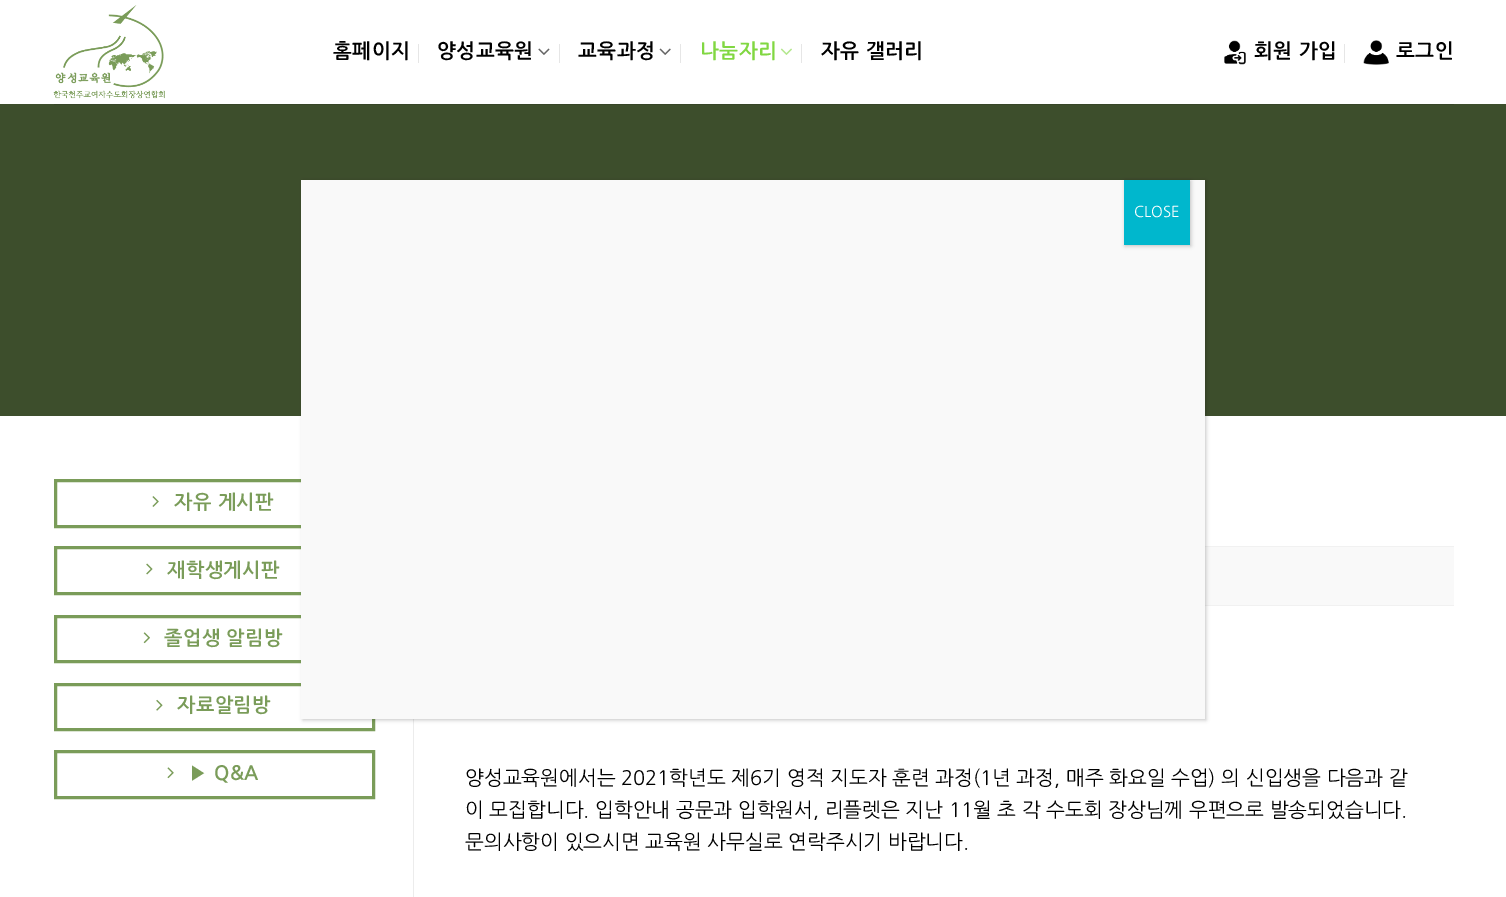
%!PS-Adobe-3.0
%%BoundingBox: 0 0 1506 897
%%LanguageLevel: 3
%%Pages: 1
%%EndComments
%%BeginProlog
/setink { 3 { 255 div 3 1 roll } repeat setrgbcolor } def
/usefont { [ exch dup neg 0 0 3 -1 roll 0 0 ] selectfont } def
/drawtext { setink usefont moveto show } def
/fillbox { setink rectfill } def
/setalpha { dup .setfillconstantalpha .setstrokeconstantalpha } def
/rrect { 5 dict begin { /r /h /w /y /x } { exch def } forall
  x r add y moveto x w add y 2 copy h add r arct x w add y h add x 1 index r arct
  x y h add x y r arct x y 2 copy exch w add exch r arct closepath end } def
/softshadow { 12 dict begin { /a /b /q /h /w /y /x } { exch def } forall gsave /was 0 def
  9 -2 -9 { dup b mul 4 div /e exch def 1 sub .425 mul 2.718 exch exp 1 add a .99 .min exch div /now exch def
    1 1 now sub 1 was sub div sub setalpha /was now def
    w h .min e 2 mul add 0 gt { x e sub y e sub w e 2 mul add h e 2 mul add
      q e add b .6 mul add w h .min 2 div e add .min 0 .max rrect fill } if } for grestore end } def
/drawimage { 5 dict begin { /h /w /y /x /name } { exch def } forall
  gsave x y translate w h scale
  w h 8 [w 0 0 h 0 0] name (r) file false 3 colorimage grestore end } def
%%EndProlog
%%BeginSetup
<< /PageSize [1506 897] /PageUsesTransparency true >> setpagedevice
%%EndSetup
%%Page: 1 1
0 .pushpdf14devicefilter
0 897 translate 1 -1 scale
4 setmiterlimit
0 0 1506 897 255 255 255 fillbox
(assets/img1.rgb) 53 5 112 94 drawimage
/NanumGothic-Bold 20 usefont
0 0 0 setink
333 58 moveto 0.5 0 (홈페이지) ashow
418 44 1 19 230 230 230 fillbox
0 0 0 setink
437 58 moveto 0.5 0 (양성교육원) ashow
(assets/img2.rgb) 538 48 12 7 drawimage
559 44 1 19 230 230 230 fillbox
0 0 0 setink
578 58 moveto 0.5 0 (교육과정) ashow
(assets/img3.rgb) 659 48 12 7 drawimage
680 44 1 19 230 230 230 fillbox
129 215 66 setink
700 58 moveto 0.5 0 (나눔자리) ashow
(assets/img4.rgb) 780 48 12 7 drawimage
801 44 1 19 230 230 230 fillbox
0 0 0 setink
821 58 moveto 0.5 0 (자유 갤러리) ashow
(assets/img5.rgb) 1224 40 22 25 drawimage
1254 58 moveto 0.5 0 (회원 가입) ashow
1344 44 1 19 230 230 230 fillbox
(assets/img6.rgb) 1363 40 26 25 drawimage
0 0 0 setink
1396 58 moveto 0.5 0 (로그인) ashow
0 104 1506 312 61 78 44 fillbox
54 104 1400 1 55 70 40 fillbox
122 156 89 setink
3 setlinewidth
55.5 480.5 318 46 rectstroke
(assets/img7.rgb) 152 496 7 11 drawimage
/NanumGothic-Bold 19.5 usefont
174 509 moveto 0.5 0 (자유 게시판) ashow
55.5 547.5 318 46 rectstroke
(assets/img8.rgb) 146 563 7 12 drawimage
167 577 moveto 0.5 0 (재학생게시판) ashow
55.5 616.5 318 45 rectstroke
(assets/img9.rgb) 143 632 7 12 drawimage
164 645 moveto 0.5 0 (졸업생 알림방) ashow
55.5 684.5 318 45 rectstroke
(assets/img10.rgb) 156 699 7 12 drawimage
177 712 moveto 0.5 0 (자료알림방) ashow
55.5 751.5 318 46 rectstroke
(assets/img11.rgb) 167 767 7 12 drawimage
189 780 moveto 0.5 0 (▶ Q&A) ashow
413 719 1 178 236 236 236 fillbox
1205 547 249 58 249 249 249 fillbox
1205 546 249 1 241 241 241 fillbox
1205 605 249 1 241 241 241 fillbox
(양성교육원에서는 2021학년도 제6기 영적 지도자 훈련 과정\(1년 과정, 매주 화요일 수업\) 의 신입생을 다음과 같) 465 785 /NanumGothic-Regular 20 0 0 0 drawtext
(이 모집합니다. 입학안내 공문과 입학원서, 리플렛은 지난 11월 초 각 수도회 장상님께 우편으로 발송되었습니다.) 465 817 /NanumGothic-Regular 20 0 0 0 drawtext
(문의사항이 있으시면 교육원 사무실로 연락주시기 바랍니다.) 465 849 /NanumGothic-Regular 20 0 0 0 drawtext
2 2 2 setink
303 181 903 539 0 2 0.23 softshadow
301 180 904 539 249 249 249 fillbox
2 2 2 setink
1125 181 66 65 0 2 0.23 softshadow
1124 180 66 65 0 183 205 fillbox
(CLOSE) 1134 217 /NanumGothic-Regular 15 255 255 255 drawtext
.poppdf14devicefilter showpage
%%EOF
